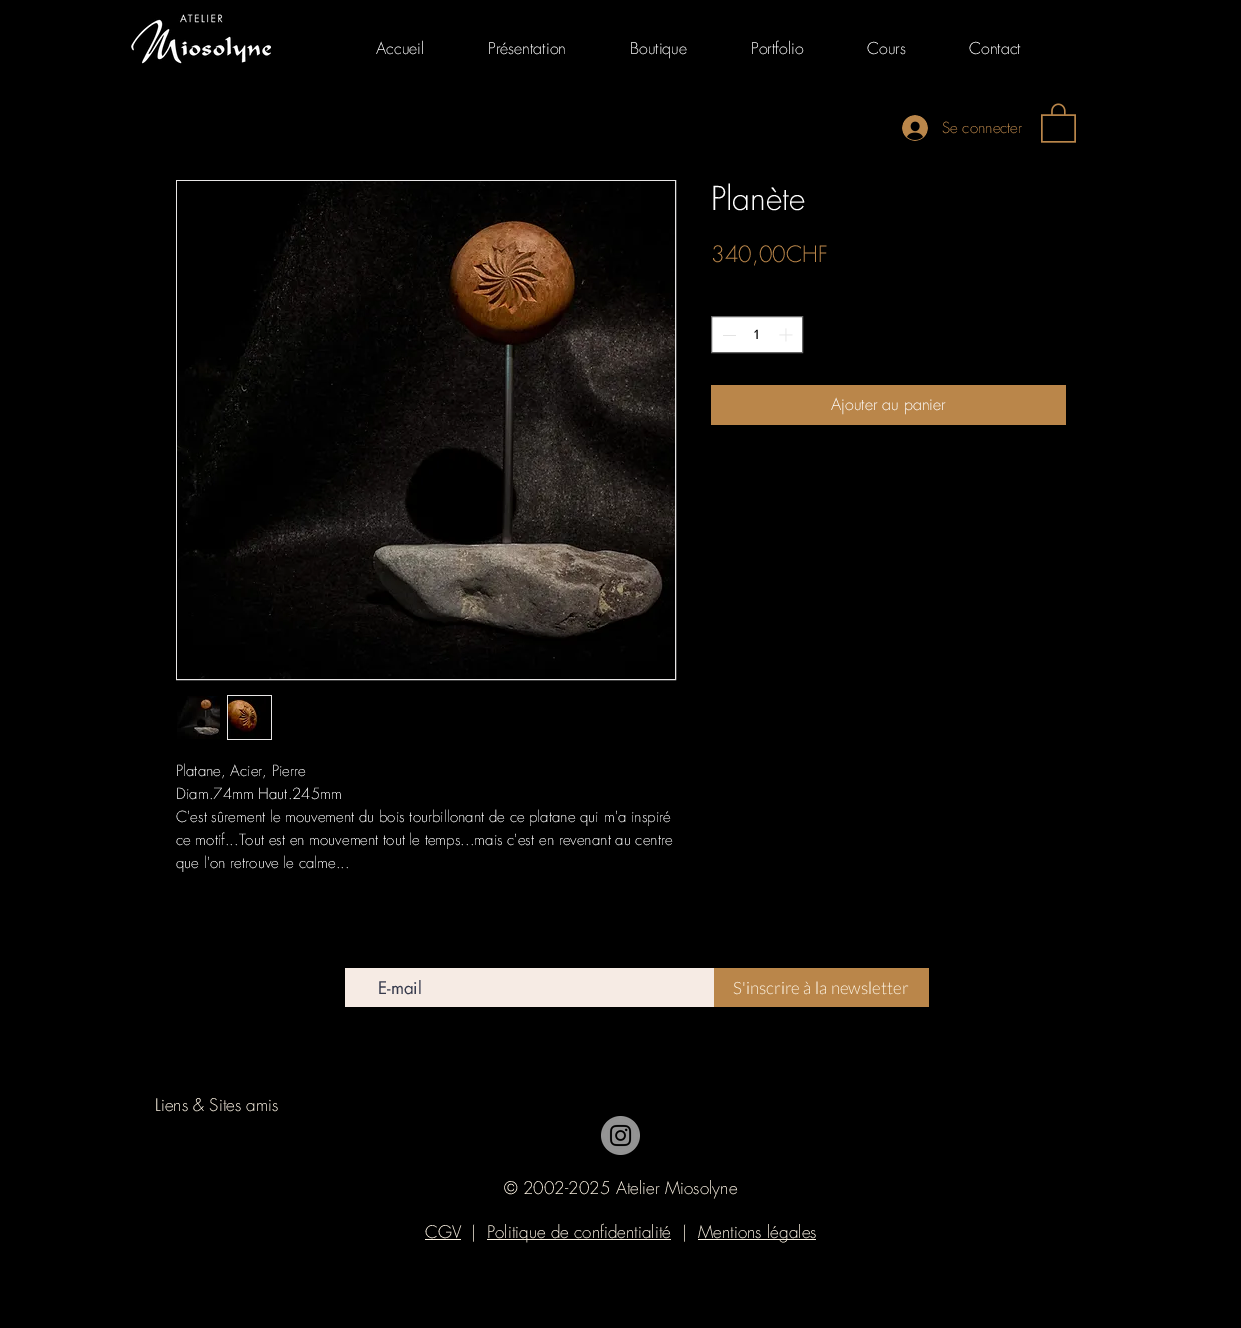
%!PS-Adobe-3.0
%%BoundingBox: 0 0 1241 1328
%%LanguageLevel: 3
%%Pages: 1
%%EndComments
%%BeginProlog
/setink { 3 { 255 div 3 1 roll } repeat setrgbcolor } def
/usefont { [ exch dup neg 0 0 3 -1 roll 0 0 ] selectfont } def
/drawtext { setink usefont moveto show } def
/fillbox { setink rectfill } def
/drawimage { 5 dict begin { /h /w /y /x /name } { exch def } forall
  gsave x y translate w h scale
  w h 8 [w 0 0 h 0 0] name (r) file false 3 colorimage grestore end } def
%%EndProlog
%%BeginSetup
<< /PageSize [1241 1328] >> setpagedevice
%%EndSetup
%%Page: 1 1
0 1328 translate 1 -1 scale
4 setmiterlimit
0 0 1241 1328 0 0 0 fillbox
(assets/img1.rgb) 131 14 140 50 drawimage
(Accueil) 376 54 /futura-Light 16 255 255 255 drawtext
(Présentation) 488 54 /futura-Light 16 255 255 255 drawtext
(Boutique) 630 54 /futura-Light 16 255 255 255 drawtext
(Portfolio) 751 54 /futura-Light 16 255 255 255 drawtext
(Cours) 867 54 /futura-Light 16 255 255 255 drawtext
(Contact) 969 54 /futura-Light 16 255 255 255 drawtext
(assets/img2.rgb) 902 115 26 26 drawimage
(Se connecter) 942 133 /futura-Light 15 186 134 74 drawtext
(assets/img3.rgb) 1041 103 35 40 drawimage
(Planète) 711 210 /futura-Light 32 255 255 255 drawtext
(340,00CHF) 711 262 /futura-Light 22 186 134 74 drawtext
255 255 255 setink
711.5 316.5 moveto 802.5 316.5 lineto 802.5 352.5 lineto 711.5 352.5 lineto closepath gsave fill grestore
102 102 102 setink
stroke
723 335 13 1 227 227 227 fillbox
(1) 754 339 /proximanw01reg-Regular 14 0 0 0 drawtext
(assets/img4.rgb) 779 328 14 14 drawimage
711 385 355 40 186 134 74 fillbox
(Ajouter au panier) 831 410 /futura-Light 16 255 255 255 drawtext
232 230 230 setink
176.5 180.5 499 499 rectstroke
(assets/img5.rgb) 177 181 498 498 drawimage
(assets/img6.rgb) 177 696 43 43 drawimage
227 695 45 45 232 230 230 fillbox
(assets/img7.rgb) 228 696 43 43 drawimage
(Platane, Acier, Pierre) 176 776 /futura-Light 15 255 255 255 drawtext
(Diam.74mm Haut.245mm) 176 799 /futura-Light 15 255 255 255 drawtext
(C'est sûrement le mouvement du bois tourbillonant de ce platane qui m'a inspiré) 176 822 /futura-Light 15 255 255 255 drawtext
(ce motif...Tout est en mouvement tout le temps...mais c'est en revenant au centre) 176 845 /futura-Light 15 255 255 255 drawtext
(que l'on retrouve le calme...) 176 868 /futura-Light 15 255 255 255 drawtext
345 968 369 39 246 235 228 fillbox
(E-mail) 378 994 /futura-Regular 17 55 59 77 drawtext
714 968 215 39 186 134 74 fillbox
(S'inscrire à la newsletter) 733 994 /Lato-Light 17 255 246 230 drawtext
(Liens & Sites amis) 155 1111 /futura-Light 17 255 246 230 drawtext
(assets/img8.rgb) 601 1116 39 39 drawimage
(© 2002-2025 Atelier Miosolyne) 504 1194 /futura-Light 17 255 246 230 drawtext
(CGV) 425 1238 /futura-Light 17 255 246 230 drawtext
425 1239 36 1 255 246 230 fillbox
(|) 471 1238 /futura-Light 17 255 246 230 drawtext
487 1239 184 1 255 246 230 fillbox
(Politique de confidentialité) 487 1238 /futura-Light 17 255 246 230 drawtext
(|) 682 1238 /futura-Light 17 255 246 230 drawtext
698 1239 118 1 255 246 230 fillbox
(Mentions légales) 698 1238 /futura-Light 17 255 246 230 drawtext
showpage
%%EOF
